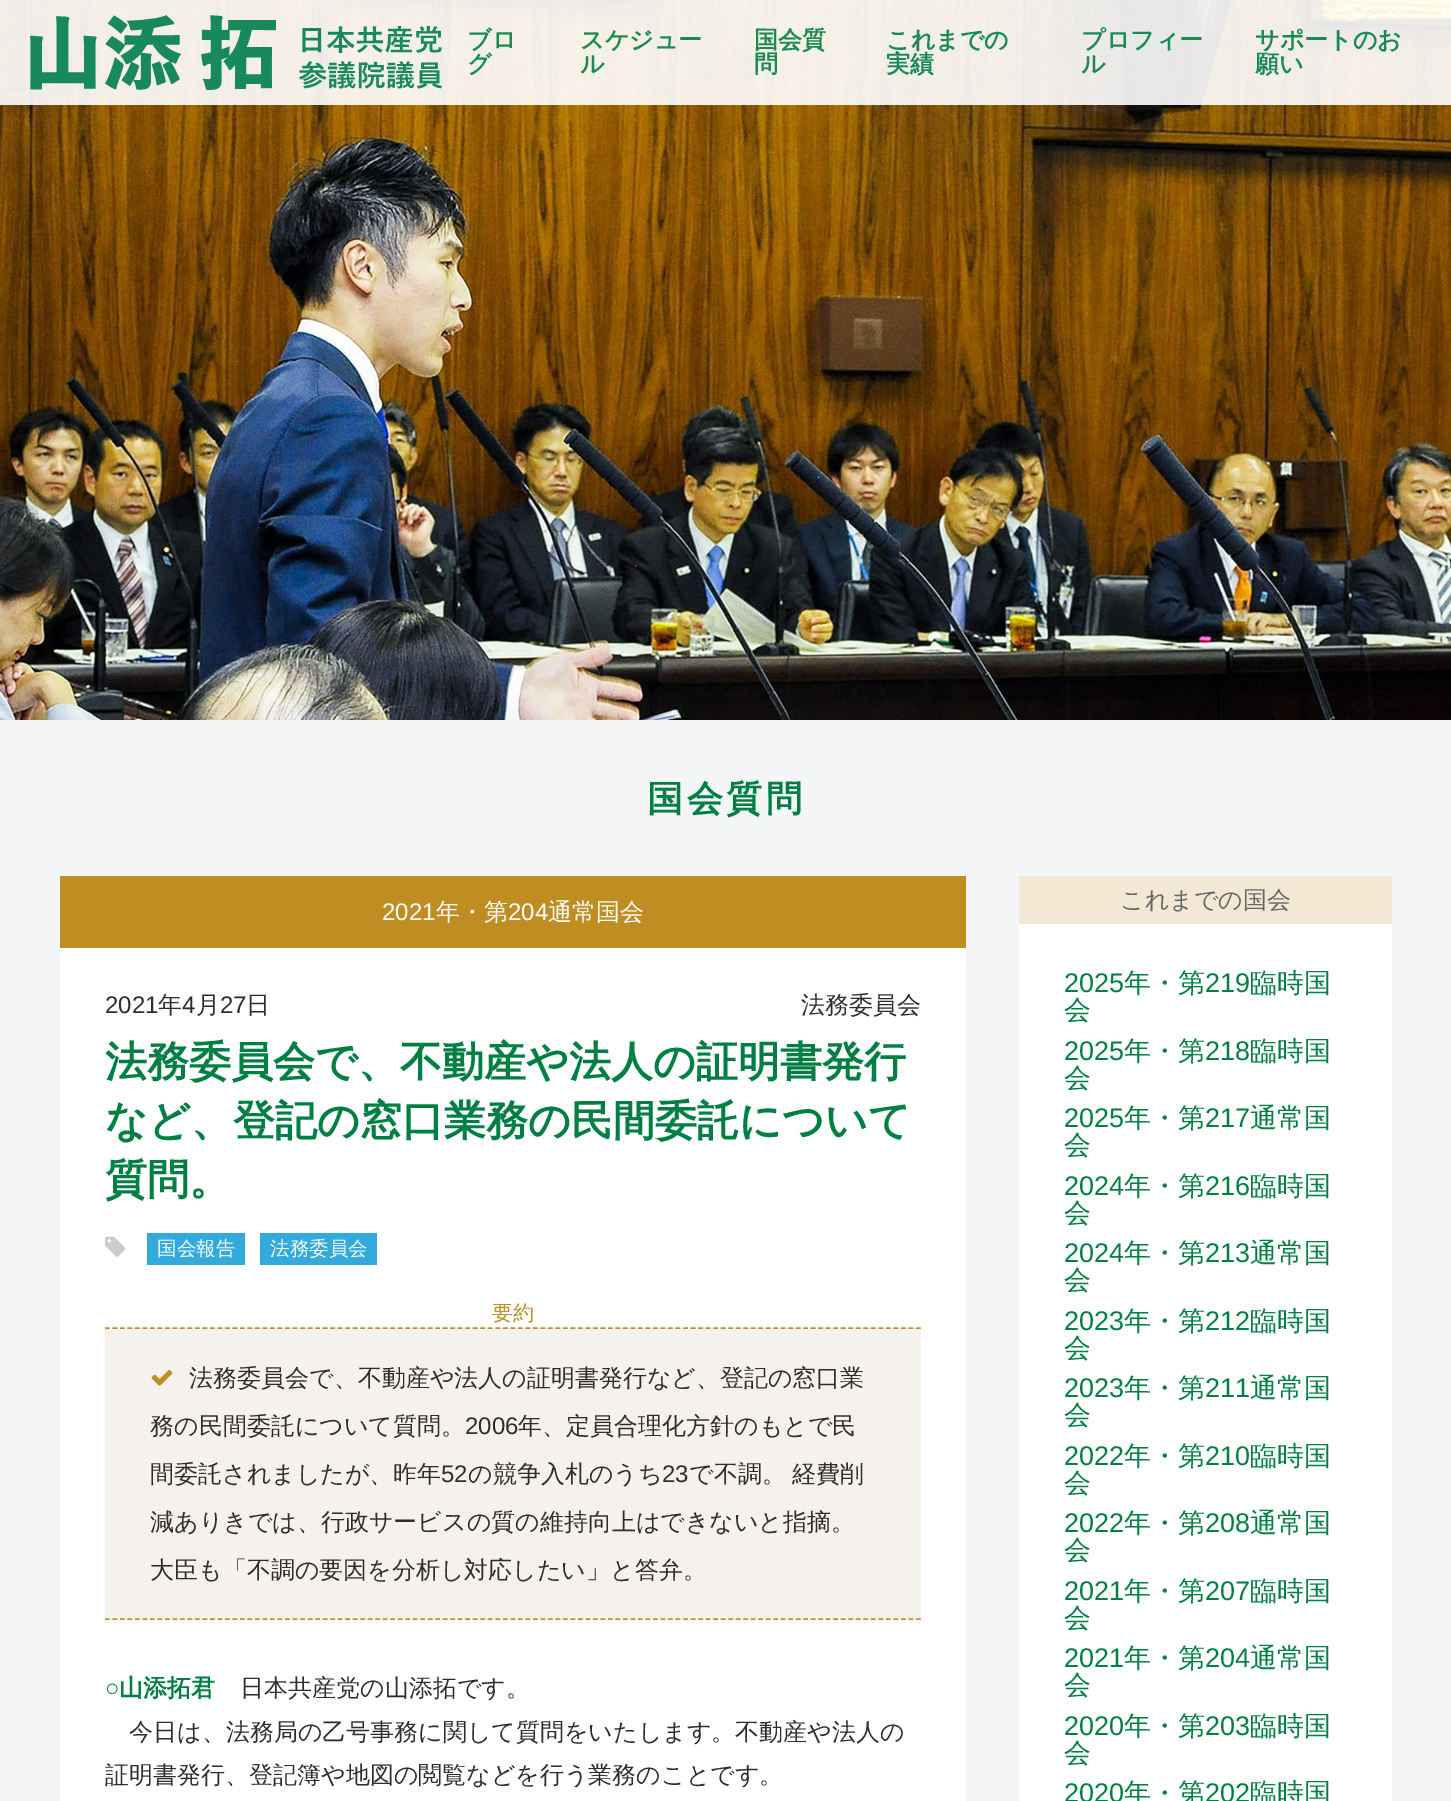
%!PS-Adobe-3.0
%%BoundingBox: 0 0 1451 1801
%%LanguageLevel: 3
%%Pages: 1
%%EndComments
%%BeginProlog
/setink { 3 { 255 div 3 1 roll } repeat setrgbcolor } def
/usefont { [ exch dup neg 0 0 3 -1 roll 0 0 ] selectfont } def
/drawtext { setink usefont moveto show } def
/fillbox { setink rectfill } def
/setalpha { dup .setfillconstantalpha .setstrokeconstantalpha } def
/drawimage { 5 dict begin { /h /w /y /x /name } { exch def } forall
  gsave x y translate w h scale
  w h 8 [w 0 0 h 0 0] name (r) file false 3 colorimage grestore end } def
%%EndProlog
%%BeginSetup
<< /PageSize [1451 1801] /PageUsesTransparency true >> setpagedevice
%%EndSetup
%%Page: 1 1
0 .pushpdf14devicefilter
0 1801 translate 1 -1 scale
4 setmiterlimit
0 0 1451 1801 244 245 246 fillbox
(assets/img2.rgb) 0 0 1451 720 drawimage
0.9 setalpha
0 0 1451 105 255 255 255 fillbox
1 setalpha
(assets/img1.rgb) 30 15 413 75 drawimage
(ブロ) 467 48 /WenQuanYiZenHei-Bold 24 24 138 82 drawtext
(グ) 467 72 /WenQuanYiZenHei-Bold 24 24 138 82 drawtext
(スケジュー) 580 48 /WenQuanYiZenHei-Bold 24 24 138 82 drawtext
(ル) 580 72 /WenQuanYiZenHei-Bold 24 24 138 82 drawtext
(国会質) 754 48 /WenQuanYiZenHei-Bold 24 24 138 82 drawtext
(問) 754 72 /WenQuanYiZenHei-Bold 24 24 138 82 drawtext
(これまでの) 886 48 /WenQuanYiZenHei-Bold 24 24 138 82 drawtext
(実績) 886 72 /WenQuanYiZenHei-Bold 24 24 138 82 drawtext
(プロフィー) 1081 48 /WenQuanYiZenHei-Bold 24 24 138 82 drawtext
(ル) 1081 72 /WenQuanYiZenHei-Bold 24 24 138 82 drawtext
(サポートのお) 1255 48 /WenQuanYiZenHei-Bold 24 24 138 82 drawtext
(願い) 1255 72 /WenQuanYiZenHei-Bold 24 24 138 82 drawtext
/WenQuanYiZenHei-Bold 36 usefont
0 127 66 setink
647 811 moveto 3.5 0 (国会質問) ashow
60 948 906 853 255 255 255 fillbox
60 876 906 72 192 141 35 fillbox
(2021) 382 920 /LiberationSans-Regular 24 255 255 255 drawtext
(年・第) 436 920 /WenQuanYiZenHei-Medium 24 255 255 255 drawtext
(204) 508 920 /LiberationSans-Regular 24 255 255 255 drawtext
(通常国会) 548 920 /WenQuanYiZenHei-Medium 24 255 255 255 drawtext
(2021) 105 1013 /LiberationSans-Regular 24 45 45 45 drawtext
(年) 158 1013 /WenQuanYiZenHei-Medium 24 45 45 45 drawtext
(4) 182 1013 /LiberationSans-Regular 24 45 45 45 drawtext
(月) 196 1013 /WenQuanYiZenHei-Medium 24 45 45 45 drawtext
(27) 220 1013 /LiberationSans-Regular 24 45 45 45 drawtext
(日) 246 1013 /WenQuanYiZenHei-Medium 24 45 45 45 drawtext
(法務委員会) 801 1013 /WenQuanYiZenHei-Medium 24 45 45 45 drawtext
(法務委員会で、不動産や法人の証明書発行) 105 1076 /WenQuanYiZenHei-Bold 42 0 127 66 drawtext
(など、登記の窓口業務の民間委託について) 105 1135 /WenQuanYiZenHei-Bold 42 0 127 66 drawtext
(質問。) 105 1194 /WenQuanYiZenHei-Bold 42 0 127 66 drawtext
(assets/img3.rgb) 105 1236 21 21 drawimage
147 1233 98 32 50 170 220 fillbox
(国会報告) 157 1255 /WenQuanYiZenHei-Medium 19.5 255 255 255 drawtext
260 1233 117 32 50 170 220 fillbox
(法務委員会) 270 1255 /WenQuanYiZenHei-Medium 19.5 255 255 255 drawtext
(要約) 492 1320 /WenQuanYiZenHei-Medium 21 192 141 35 drawtext
105 1328 816 292 245 241 237 fillbox
192 141 35 setink
1.5 setlinewidth
[4.5 3.01] 0 setdash
105 1328 moveto 921 1328 lineto stroke
105 1619 moveto 921 1619 lineto stroke
(assets/img4.rgb) 151 1369 22 17 drawimage
(法務委員会で、不動産や法人の証明書発行など、登記の窓口業) 189 1386 /WenQuanYiZenHei-Medium 24 45 45 45 drawtext
(務の民間委託について質問。) 150 1434 /WenQuanYiZenHei-Medium 24 45 45 45 drawtext
(2006) 465 1434 /LiberationSans-Regular 24 45 45 45 drawtext
(年、定員合理化方針のもとで民) 518 1434 /WenQuanYiZenHei-Medium 24 45 45 45 drawtext
(間委託されましたが、昨年) 150 1482 /WenQuanYiZenHei-Medium 24 45 45 45 drawtext
(52) 441 1482 /LiberationSans-Regular 24 45 45 45 drawtext
(の競争入札のうち) 468 1482 /WenQuanYiZenHei-Medium 24 45 45 45 drawtext
(23) 662 1482 /LiberationSans-Regular 24 45 45 45 drawtext
/WenQuanYiZenHei-Medium 24 usefont
689 1482 moveto -1 0 32 (で不調。 経費削) widthshow
(減ありきでは、行政サービスの質の維持向上はできないと指摘。) 150 1530 /WenQuanYiZenHei-Medium 24 45 45 45 drawtext
(大臣も「不調の要因を分析し対応したい」と答弁。) 150 1578 /WenQuanYiZenHei-Medium 24 45 45 45 drawtext
(○) 105 1696 /LiberationSans-Bold 24 0 127 66 drawtext
(山添拓君) 119 1696 /WenQuanYiZenHei-Bold 24 0 127 66 drawtext
(日本共産党の山添拓です。) 240 1696 /WenQuanYiZenHei-Medium 24 45 45 45 drawtext
(今日は、法務局の乙号事務に関して質問をいたします。不動産や法人の) 129 1740 /WenQuanYiZenHei-Medium 24 45 45 45 drawtext
(証明書発行、登記簿や地図の閲覧などを行う業務のことです。) 105 1783 /WenQuanYiZenHei-Medium 24 45 45 45 drawtext
1019 876 373 48 242 232 211 fillbox
(これまでの国会) 1120 908 /WenQuanYiZenHei-Medium 24 102 102 102 drawtext
1019 924 373 877 255 255 255 fillbox
(2025) 1064 992 /LiberationSans-Regular 27 0 127 66 drawtext
(年・第) 1124 992 /WenQuanYiZenHei-Medium 27 0 127 66 drawtext
(219) 1205 992 /LiberationSans-Regular 27 0 127 66 drawtext
(臨時国) 1250 992 /WenQuanYiZenHei-Medium 27 0 127 66 drawtext
(会) 1064 1019 /WenQuanYiZenHei-Medium 27 0 127 66 drawtext
(2025) 1064 1060 /LiberationSans-Regular 27 0 127 66 drawtext
(年・第) 1124 1060 /WenQuanYiZenHei-Medium 27 0 127 66 drawtext
(218) 1205 1060 /LiberationSans-Regular 27 0 127 66 drawtext
(臨時国) 1250 1060 /WenQuanYiZenHei-Medium 27 0 127 66 drawtext
(会) 1064 1087 /WenQuanYiZenHei-Medium 27 0 127 66 drawtext
(2025) 1064 1127 /LiberationSans-Regular 27 0 127 66 drawtext
(年・第) 1124 1127 /WenQuanYiZenHei-Medium 27 0 127 66 drawtext
(217) 1205 1127 /LiberationSans-Regular 27 0 127 66 drawtext
(通常国) 1250 1127 /WenQuanYiZenHei-Medium 27 0 127 66 drawtext
(会) 1064 1154 /WenQuanYiZenHei-Medium 27 0 127 66 drawtext
(2024) 1064 1195 /LiberationSans-Regular 27 0 127 66 drawtext
(年・第) 1124 1195 /WenQuanYiZenHei-Medium 27 0 127 66 drawtext
(216) 1205 1195 /LiberationSans-Regular 27 0 127 66 drawtext
(臨時国) 1250 1195 /WenQuanYiZenHei-Medium 27 0 127 66 drawtext
(会) 1064 1222 /WenQuanYiZenHei-Medium 27 0 127 66 drawtext
(2024) 1064 1262 /LiberationSans-Regular 27 0 127 66 drawtext
(年・第) 1124 1262 /WenQuanYiZenHei-Medium 27 0 127 66 drawtext
(213) 1205 1262 /LiberationSans-Regular 27 0 127 66 drawtext
(通常国) 1250 1262 /WenQuanYiZenHei-Medium 27 0 127 66 drawtext
(会) 1064 1289 /WenQuanYiZenHei-Medium 27 0 127 66 drawtext
(2023) 1064 1330 /LiberationSans-Regular 27 0 127 66 drawtext
(年・第) 1124 1330 /WenQuanYiZenHei-Medium 27 0 127 66 drawtext
(212) 1205 1330 /LiberationSans-Regular 27 0 127 66 drawtext
(臨時国) 1250 1330 /WenQuanYiZenHei-Medium 27 0 127 66 drawtext
(会) 1064 1357 /WenQuanYiZenHei-Medium 27 0 127 66 drawtext
(2023) 1064 1397 /LiberationSans-Regular 27 0 127 66 drawtext
(年・第) 1124 1397 /WenQuanYiZenHei-Medium 27 0 127 66 drawtext
(211) 1205 1397 /LiberationSans-Regular 27 0 127 66 drawtext
(通常国) 1250 1397 /WenQuanYiZenHei-Medium 27 0 127 66 drawtext
(会) 1064 1424 /WenQuanYiZenHei-Medium 27 0 127 66 drawtext
(2022) 1064 1465 /LiberationSans-Regular 27 0 127 66 drawtext
(年・第) 1124 1465 /WenQuanYiZenHei-Medium 27 0 127 66 drawtext
(210) 1205 1465 /LiberationSans-Regular 27 0 127 66 drawtext
(臨時国) 1250 1465 /WenQuanYiZenHei-Medium 27 0 127 66 drawtext
(会) 1064 1492 /WenQuanYiZenHei-Medium 27 0 127 66 drawtext
(2022) 1064 1532 /LiberationSans-Regular 27 0 127 66 drawtext
(年・第) 1124 1532 /WenQuanYiZenHei-Medium 27 0 127 66 drawtext
(208) 1205 1532 /LiberationSans-Regular 27 0 127 66 drawtext
(通常国) 1250 1532 /WenQuanYiZenHei-Medium 27 0 127 66 drawtext
(会) 1064 1559 /WenQuanYiZenHei-Medium 27 0 127 66 drawtext
(2021) 1064 1600 /LiberationSans-Regular 27 0 127 66 drawtext
(年・第) 1124 1600 /WenQuanYiZenHei-Medium 27 0 127 66 drawtext
(207) 1205 1600 /LiberationSans-Regular 27 0 127 66 drawtext
(臨時国) 1250 1600 /WenQuanYiZenHei-Medium 27 0 127 66 drawtext
(会) 1064 1627 /WenQuanYiZenHei-Medium 27 0 127 66 drawtext
(2021) 1064 1667 /LiberationSans-Regular 27 0 127 66 drawtext
(年・第) 1124 1667 /WenQuanYiZenHei-Medium 27 0 127 66 drawtext
(204) 1205 1667 /LiberationSans-Regular 27 0 127 66 drawtext
(通常国) 1250 1667 /WenQuanYiZenHei-Medium 27 0 127 66 drawtext
(会) 1064 1694 /WenQuanYiZenHei-Medium 27 0 127 66 drawtext
(2020) 1064 1735 /LiberationSans-Regular 27 0 127 66 drawtext
(年・第) 1124 1735 /WenQuanYiZenHei-Medium 27 0 127 66 drawtext
(203) 1205 1735 /LiberationSans-Regular 27 0 127 66 drawtext
(臨時国) 1250 1735 /WenQuanYiZenHei-Medium 27 0 127 66 drawtext
(会) 1064 1762 /WenQuanYiZenHei-Medium 27 0 127 66 drawtext
(2020) 1064 1802 /LiberationSans-Regular 27 0 127 66 drawtext
(年・第) 1124 1802 /WenQuanYiZenHei-Medium 27 0 127 66 drawtext
(202) 1205 1802 /LiberationSans-Regular 27 0 127 66 drawtext
(臨時国) 1250 1802 /WenQuanYiZenHei-Medium 27 0 127 66 drawtext
.poppdf14devicefilter showpage
%%EOF
